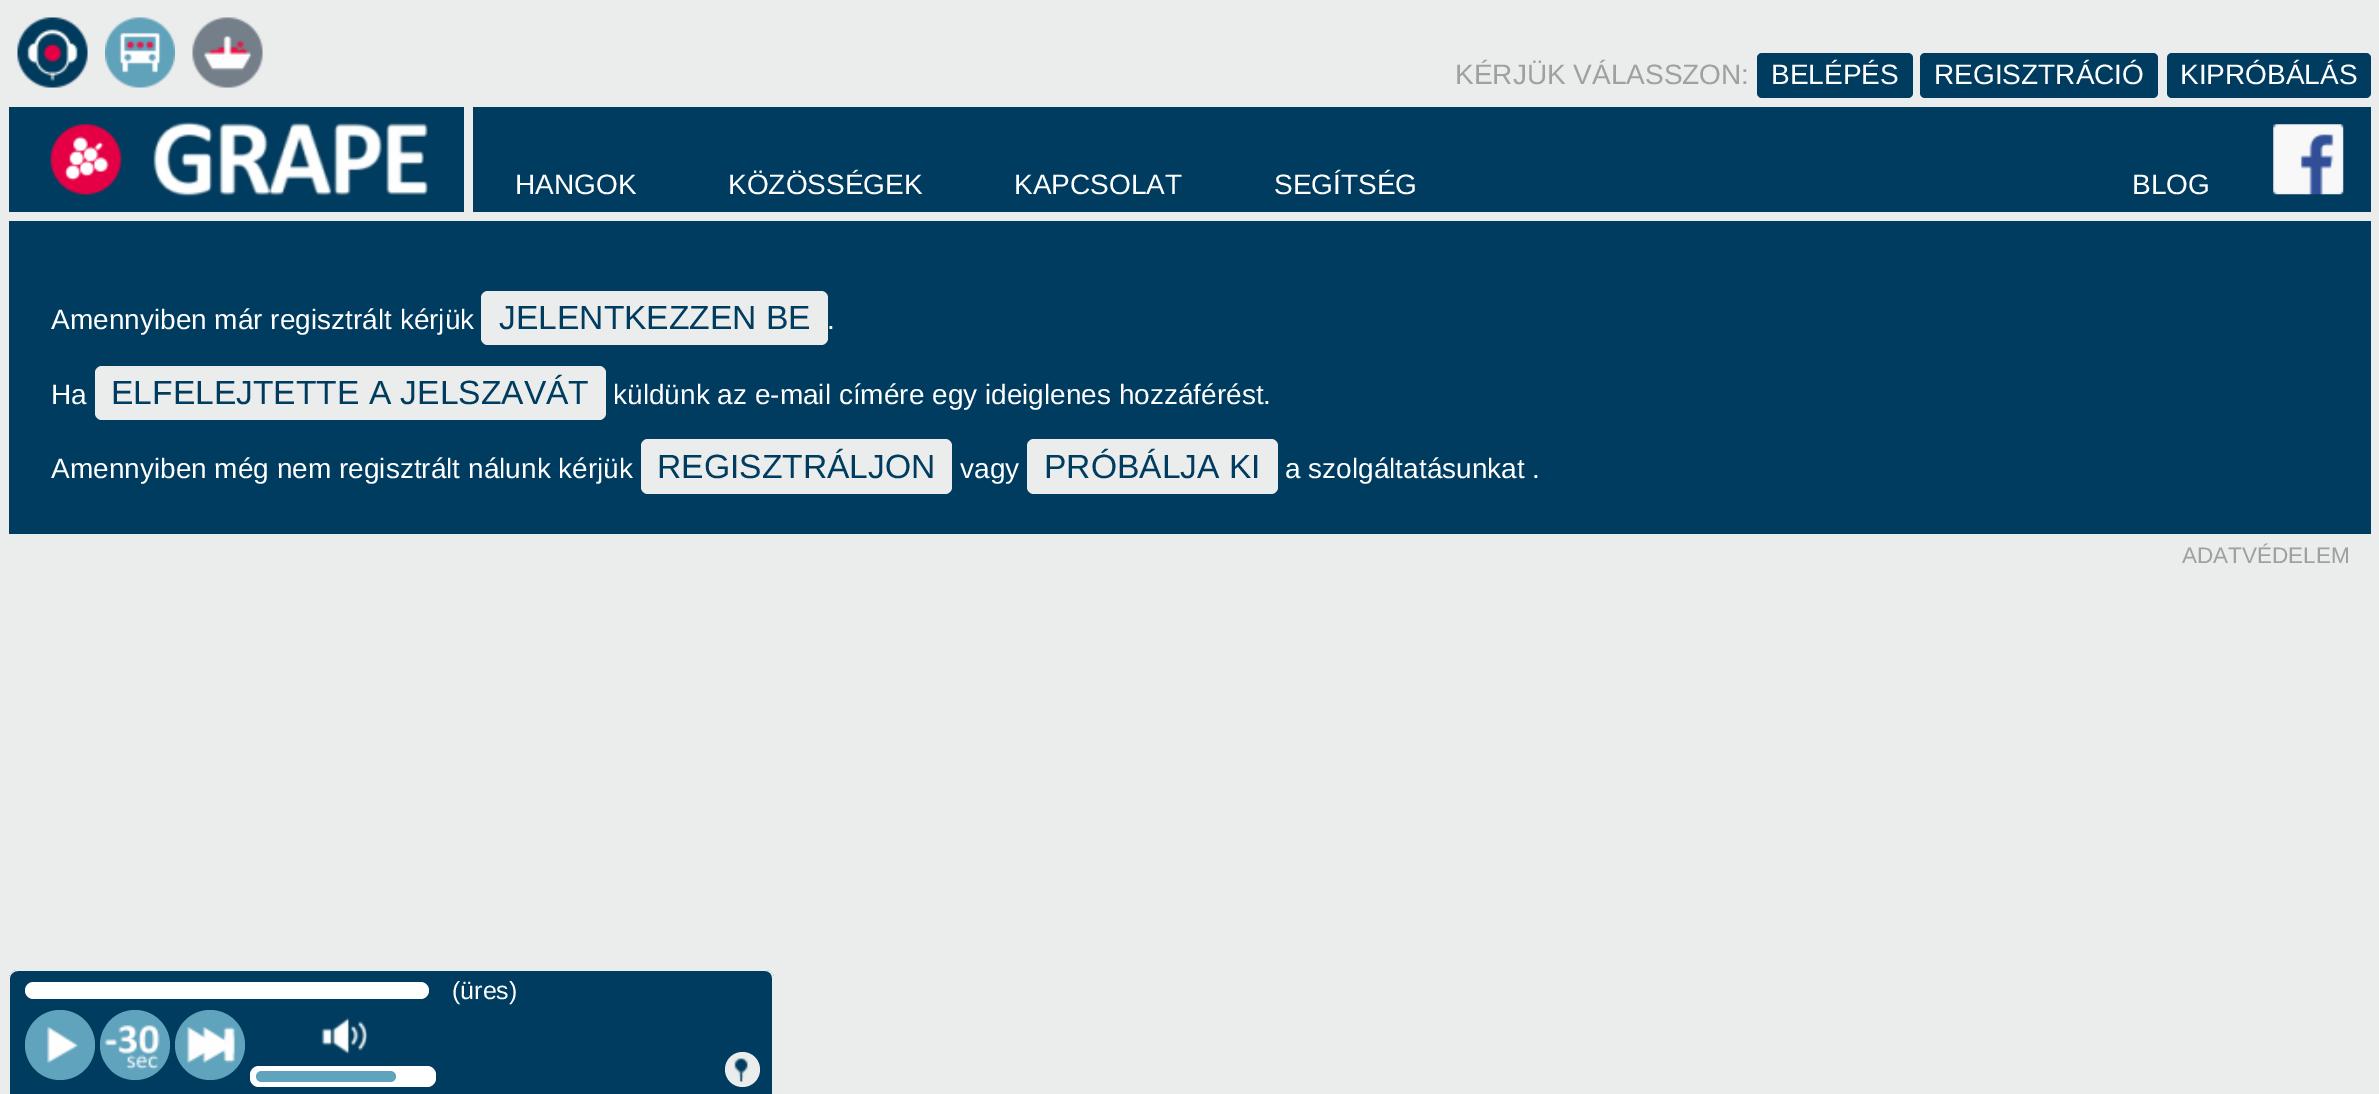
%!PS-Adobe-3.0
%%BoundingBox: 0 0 2379 1094
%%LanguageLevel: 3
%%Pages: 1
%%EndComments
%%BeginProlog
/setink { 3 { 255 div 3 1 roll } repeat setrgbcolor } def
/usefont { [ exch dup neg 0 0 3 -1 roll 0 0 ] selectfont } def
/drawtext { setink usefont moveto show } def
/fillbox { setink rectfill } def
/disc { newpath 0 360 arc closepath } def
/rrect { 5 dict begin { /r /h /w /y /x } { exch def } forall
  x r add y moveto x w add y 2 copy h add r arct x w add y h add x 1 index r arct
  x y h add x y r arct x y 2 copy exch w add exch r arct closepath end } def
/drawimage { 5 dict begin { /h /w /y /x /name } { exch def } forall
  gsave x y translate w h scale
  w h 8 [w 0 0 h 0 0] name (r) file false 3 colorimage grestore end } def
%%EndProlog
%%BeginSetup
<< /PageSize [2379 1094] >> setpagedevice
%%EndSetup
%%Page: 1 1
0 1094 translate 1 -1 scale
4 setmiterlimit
0 0 2379 1094 235 236 236 fillbox
(assets/img1.rgb) 17 17 71 71 drawimage
(assets/img2.rgb) 105 17 70 71 drawimage
(assets/img3.rgb) 192 17 71 71 drawimage
(KÉRJÜK VÁLASSZON:) 1455 84 /LiberationSans-Regular 28 160 160 160 drawtext
0 60 96 setink
1757 53 156 45 5 rrect fill
(BELÉPÉS) 1771 84 /LiberationSans-Regular 28 255 255 255 drawtext
0 60 96 setink
1920 53 238 45 5 rrect fill
(REGISZTRÁCIÓ) 1934 84 /LiberationSans-Regular 28 255 255 255 drawtext
0 60 96 setink
2167 53 204 45 5 rrect fill
(KIPRÓBÁLÁS) 2180 84 /LiberationSans-Regular 28 255 255 255 drawtext
9 107 455 105 0 60 96 fillbox
(assets/img4.rgb) 50 122 379 75 drawimage
473 107 1898 105 0 60 96 fillbox
(HANGOK) 515 194 /LiberationSans-Regular 28 255 255 255 drawtext
(KÖZÖSSÉGEK) 728 194 /LiberationSans-Regular 28 255 255 255 drawtext
(KAPCSOLAT) 1014 194 /LiberationSans-Regular 28 255 255 255 drawtext
(SEGÍTSÉG) 1274 194 /LiberationSans-Regular 28 255 255 255 drawtext
(BLOG) 2132 194 /LiberationSans-Regular 28 255 255 255 drawtext
(assets/img5.rgb) 2273 124 71 71 drawimage
9 221 2362 313 0 60 96 fillbox
(Amennyiben már regisztrált kérjük) 51 329 /LiberationSans-Regular 28 255 255 255 drawtext
235 236 236 setink
481 291 347 54 7 rrect fill
(JELENTKEZZEN BE) 499 329 /LiberationSans-Regular 33.6 0 60 96 drawtext
(.) 827 329 /LiberationSans-Regular 28 255 255 255 drawtext
(Ha) 51 404 /LiberationSans-Regular 28 255 255 255 drawtext
235 236 236 setink
95 366 511 54 7 rrect fill
(ELFELEJTETTE A JELSZAVÁT) 111 404 /LiberationSans-Regular 33.6 0 60 96 drawtext
(küldünk az e-mail címére egy ideiglenes hozzáférést.) 613 404 /LiberationSans-Regular 28 255 255 255 drawtext
(Amennyiben még nem regisztrált nálunk kérjük) 51 478 /LiberationSans-Regular 28 255 255 255 drawtext
235 236 236 setink
641 439 311 55 7 rrect fill
(REGISZTRÁLJON) 657 478 /LiberationSans-Regular 33.6 0 60 96 drawtext
(vagy) 960 478 /LiberationSans-Regular 28 255 255 255 drawtext
235 236 236 setink
1027 439 251 55 7 rrect fill
(PRÓBÁLJA KI) 1044 478 /LiberationSans-Regular 33.6 0 60 96 drawtext
(a szolgáltatásunkat .) 1285 478 /LiberationSans-Regular 28 255 255 255 drawtext
(ADATVÉDELEM) 2182 563 /LiberationSans-Regular 22.5 160 160 160 drawtext
0 60 96 setink
18 970 moveto 765 970 lineto 770 970 774 974 774 979 curveto 774 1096 lineto 9 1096 lineto 9 979 lineto 9 974 13 970 18 970 curveto closepath fill
235 236 236 setink
18 970 moveto 765 970 lineto 770 970 774 973 774 978 curveto 774 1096 lineto 9 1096 lineto 9 978 lineto 9 973 13 970 18 970 curveto closepath 18 971 moveto 765 971 lineto 769 971 772 974 772 978 curveto 772 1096 lineto 10 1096 lineto 10 978 lineto 10 974 14 971 18 971 curveto closepath eofill
255 255 255 setink
25 982 404 17 8.5 rrect fill
96 163 189 setink
60 1045 35 disc fill
(assets/img6.rgb) 46 1027 32 36 drawimage
135 1045 35 disc fill
(assets/img7.rgb) 104 1025 56 45 drawimage
210 1045 35 disc fill
(assets/img8.rgb) 186 1027 49 36 drawimage
(assets/img9.rgb) 321 1018 47 36 drawimage
255 255 255 setink
250 1066 186 21 9 rrect fill
96 163 189 setink
256 1071 140 11 5.5 rrect fill
(\(üres\)) 452 999 /LiberationSans-Regular 25 255 255 255 drawtext
235 236 236 setink
742.5 1069.5 17.5 disc fill
(assets/img10.rgb) 734 1058 14 24 drawimage
showpage
%%EOF
